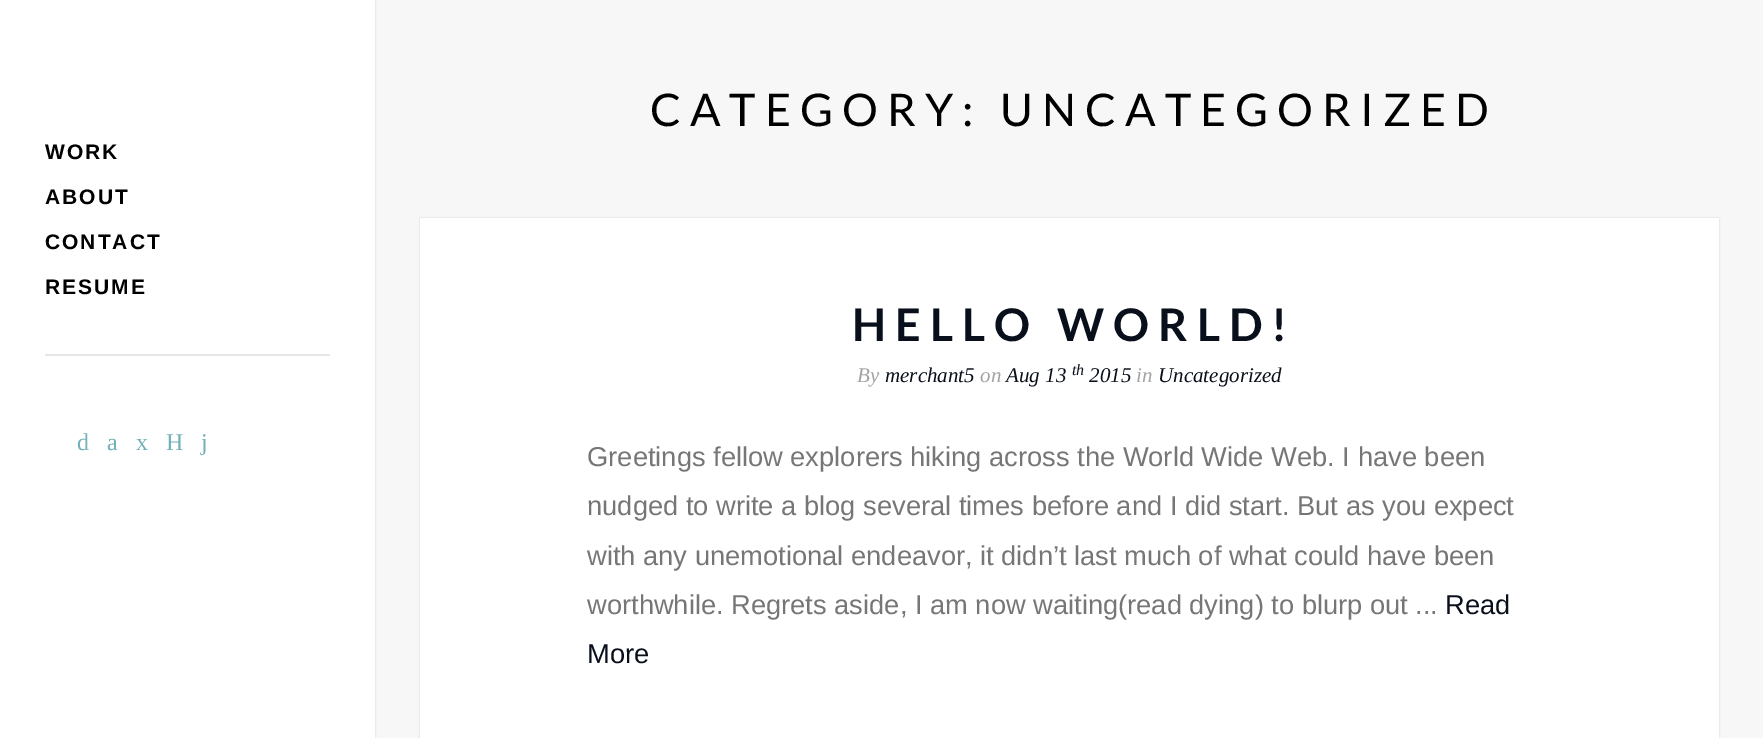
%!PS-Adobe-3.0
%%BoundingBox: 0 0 1763 738
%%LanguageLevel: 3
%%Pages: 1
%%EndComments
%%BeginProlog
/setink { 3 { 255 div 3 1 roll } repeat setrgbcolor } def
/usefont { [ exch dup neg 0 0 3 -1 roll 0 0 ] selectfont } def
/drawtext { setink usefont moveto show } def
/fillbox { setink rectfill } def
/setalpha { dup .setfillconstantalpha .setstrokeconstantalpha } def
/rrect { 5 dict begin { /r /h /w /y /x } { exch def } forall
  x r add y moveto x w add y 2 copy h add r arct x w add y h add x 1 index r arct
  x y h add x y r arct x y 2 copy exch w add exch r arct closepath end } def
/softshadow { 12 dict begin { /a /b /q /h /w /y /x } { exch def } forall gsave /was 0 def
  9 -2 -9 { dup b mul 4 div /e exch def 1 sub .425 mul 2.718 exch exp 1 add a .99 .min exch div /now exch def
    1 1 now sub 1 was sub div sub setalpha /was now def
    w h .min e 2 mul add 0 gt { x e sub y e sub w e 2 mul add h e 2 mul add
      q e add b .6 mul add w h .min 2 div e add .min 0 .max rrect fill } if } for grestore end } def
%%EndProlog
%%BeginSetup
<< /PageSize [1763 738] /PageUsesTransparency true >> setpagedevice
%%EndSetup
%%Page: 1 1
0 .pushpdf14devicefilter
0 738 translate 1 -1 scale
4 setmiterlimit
0 0 1763 738 247 247 247 fillbox
0 0 0 setink
0 0 375 738 0 1 0.15 softshadow
0 0 375 738 255 255 255 fillbox
/LiberationSans-Bold 21 usefont
0 0 0 setink
45 159 moveto 2 0 (WORK) ashow
45 204 moveto 2 0 (ABOUT) ashow
45 249 moveto 2 0 (CONTACT) ashow
45 294 moveto 2 0 (RESUME) ashow
45 354 285 2 230 230 230 fillbox
(d) 77 450 /LiberationSerif-Regular 24 114 177 184 drawtext
(a) 107 450 /LiberationSerif-Regular 24 114 177 184 drawtext
(x) 136 450 /LiberationSerif-Regular 24 114 177 184 drawtext
(H) 166 450 /LiberationSerif-Regular 24 114 177 184 drawtext
(j) 201 450 /LiberationSerif-Regular 24 114 177 184 drawtext
/Lato-Regular 45 usefont
0 0 0 setink
650 126 moveto 9 0 (CATEGORY: UNCATEGORIZED) ashow
420 218 1299 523 0 1 0.15 softshadow
420 218 1299 520 255 255 255 fillbox
/Lato-Bold 45 usefont
9 16 27 setink
852 341 moveto 9 0 (HELLO WORLD!) ashow
(By) 857 382 /LiberationSerif-Italic 21 163 163 163 drawtext
(merchant5) 885 382 /LiberationSerif-Italic 21 9 16 27 drawtext
(on) 980 382 /LiberationSerif-Italic 21 163 163 163 drawtext
(Aug 13) 1006 382 /LiberationSerif-Italic 21 9 16 27 drawtext
(th) 1072 375 /LiberationSerif-Italic 16 9 16 27 drawtext
(2015) 1089 382 /LiberationSerif-Italic 21 9 16 27 drawtext
(in) 1136 382 /LiberationSerif-Italic 21 163 163 163 drawtext
(Uncategorized) 1158 382 /LiberationSerif-Italic 21 9 16 27 drawtext
(Greetings fellow explorers hiking across the World Wide Web. I have been) 587 466 /LiberationSans-Regular 27.3 118 118 118 drawtext
(nudged to write a blog several times before and I did start. But as you expect) 587 515 /LiberationSans-Regular 27.3 118 118 118 drawtext
(with any unemotional endeavor, it didn’t last much of what could have been) 587 565 /LiberationSans-Regular 27.3 118 118 118 drawtext
(worthwhile. Regrets aside, I am now waiting\(read dying\) to blurp out ...) 587 614 /LiberationSans-Regular 27.3 118 118 118 drawtext
(Read) 1445 614 /LiberationSans-Regular 27.3 9 16 27 drawtext
(More) 587 663 /LiberationSans-Regular 27.3 9 16 27 drawtext
.poppdf14devicefilter showpage
%%EOF
